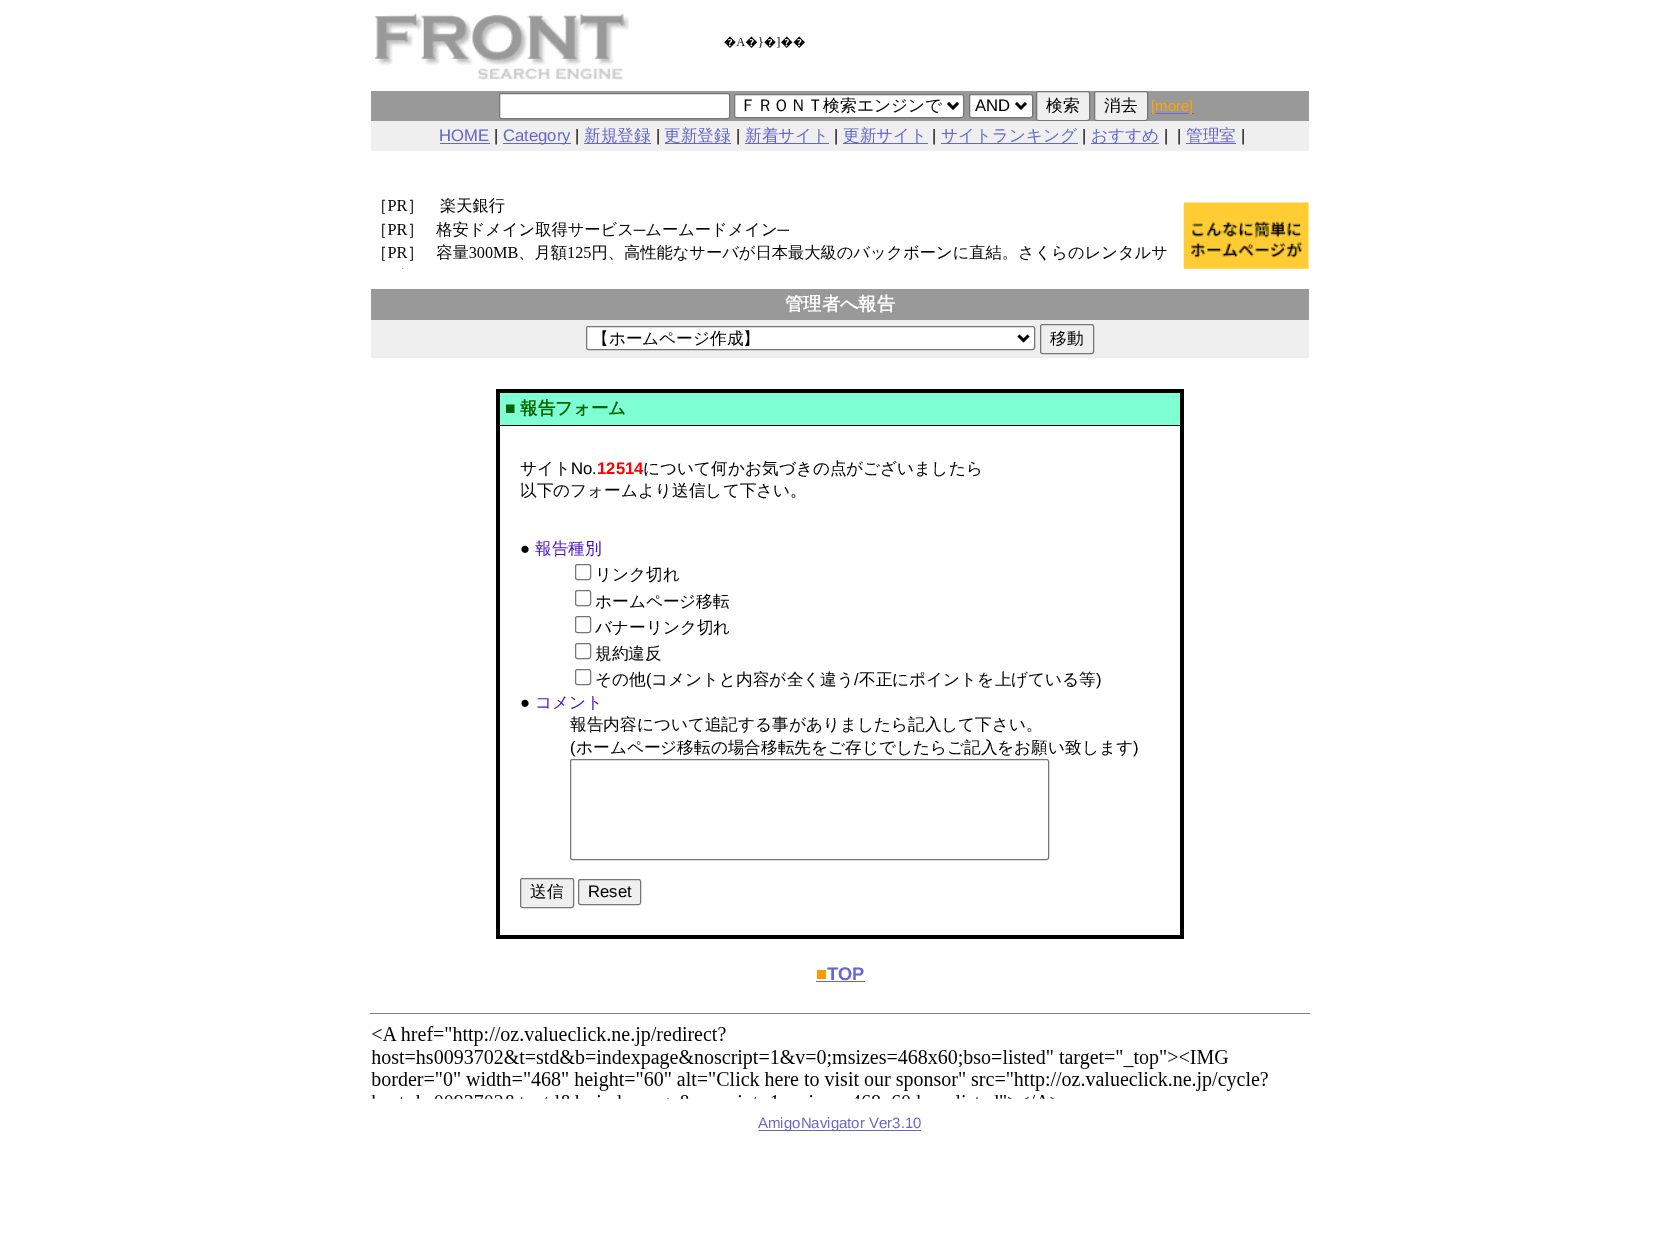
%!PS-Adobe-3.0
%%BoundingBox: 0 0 1680 1246
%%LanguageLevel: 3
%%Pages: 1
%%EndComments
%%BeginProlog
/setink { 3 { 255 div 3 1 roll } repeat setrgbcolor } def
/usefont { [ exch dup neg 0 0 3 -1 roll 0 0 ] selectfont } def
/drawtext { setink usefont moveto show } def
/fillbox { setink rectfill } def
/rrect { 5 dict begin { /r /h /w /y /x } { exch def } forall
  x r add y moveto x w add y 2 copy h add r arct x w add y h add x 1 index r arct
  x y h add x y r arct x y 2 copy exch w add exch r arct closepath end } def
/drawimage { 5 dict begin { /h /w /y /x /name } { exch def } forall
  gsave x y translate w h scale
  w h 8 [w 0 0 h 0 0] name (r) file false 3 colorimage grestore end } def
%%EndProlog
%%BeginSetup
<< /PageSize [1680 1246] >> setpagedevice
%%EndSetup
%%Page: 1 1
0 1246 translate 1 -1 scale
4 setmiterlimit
0 0 1680 1246 255 255 255 fillbox
(assets/img1.rgb) 374 13 255 67 drawimage
(assets/img2.rgb) 724 36 81 12 drawimage
371 91 938 30 153 153 153 fillbox
255 255 255 setink
499.5 93.5 230 25 2 rrect gsave fill grestore
118 118 118 setink
stroke
255 255 255 setink
734.5 94.5 229 23 2 rrect gsave fill grestore
118 118 118 setink
stroke
0 0 0 setink
2.5 setlinewidth
948 103 moveto 953 108 lineto 958 103 lineto stroke
(ＦＲＯＮＴ検索エンジンで) 740 111 /WenQuanYiZenHei-Medium 16.65 0 0 0 drawtext
255 255 255 setink
969.5 94.5 63 23 2 rrect gsave fill grestore
118 118 118 setink
1 setlinewidth
stroke
0 0 0 setink
2.5 setlinewidth
1016 103 moveto 1021 108 lineto 1026 103 lineto stroke
(AND) 975 111 /LiberationSans-Regular 16.65 0 0 0 drawtext
239 239 239 setink
1036.5 91.5 53 29 2 rrect gsave fill grestore
118 118 118 setink
1 setlinewidth
stroke
(検索) 1046 111 /WenQuanYiZenHei-Medium 16.65 0 0 0 drawtext
239 239 239 setink
1094.5 91.5 53 29 2 rrect gsave fill grestore
118 118 118 setink
stroke
(消去) 1104 111 /WenQuanYiZenHei-Medium 16.65 0 0 0 drawtext
1151 113 43 1 102 102 204 fillbox
([more]) 1151 111 /LiberationSans-Regular 15 255 165 0 drawtext
371 121 938 30 239 239 239 fillbox
(HOME) 439 141 /LiberationSans-Regular 16.65 102 102 204 drawtext
440 143 50 1 102 102 204 fillbox
(|) 494 141 /LiberationSans-Regular 16.65 0 0 0 drawtext
503 143 68 1 102 102 204 fillbox
(Category) 503 141 /LiberationSans-Regular 16.65 102 102 204 drawtext
(|) 575 141 /LiberationSans-Regular 16.65 0 0 0 drawtext
584 143 67 1 102 102 204 fillbox
(新規登録) 584 141 /WenQuanYiZenHei-Medium 16.65 102 102 204 drawtext
(|) 656 141 /LiberationSans-Regular 16.65 0 0 0 drawtext
665 143 66 1 102 102 204 fillbox
(更新登録) 664 141 /WenQuanYiZenHei-Medium 16.65 102 102 204 drawtext
(|) 736 141 /LiberationSans-Regular 16.65 0 0 0 drawtext
745 143 84 1 102 102 204 fillbox
(新着サイト) 745 141 /WenQuanYiZenHei-Medium 16.65 102 102 204 drawtext
(|) 834 141 /LiberationSans-Regular 16.65 0 0 0 drawtext
843 143 85 1 102 102 204 fillbox
(更新サイト) 843 141 /WenQuanYiZenHei-Medium 16.65 102 102 204 drawtext
(|) 932 141 /LiberationSans-Regular 16.65 0 0 0 drawtext
941 143 137 1 102 102 204 fillbox
(サイトランキング) 941 141 /WenQuanYiZenHei-Medium 16.65 102 102 204 drawtext
(|) 1082 141 /LiberationSans-Regular 16.65 0 0 0 drawtext
1091 143 68 1 102 102 204 fillbox
(おすすめ) 1091 141 /WenQuanYiZenHei-Medium 16.65 102 102 204 drawtext
(|) 1164 141 /LiberationSans-Regular 16.65 0 0 0 drawtext
(|) 1177 141 /LiberationSans-Regular 16.65 0 0 0 drawtext
1186 143 50 1 102 102 204 fillbox
(管理室) 1186 141 /WenQuanYiZenHei-Medium 16.65 102 102 204 drawtext
(|) 1241 141 /LiberationSans-Regular 16.65 0 0 0 drawtext
(assets/img3.rgb) 382 197 927 72 drawimage
371 289 938 31 153 153 153 fillbox
(管理者へ報告) 785 310 /WenQuanYiZenHei-Bold 18.25 255 255 255 drawtext
371 320 938 38 239 239 239 fillbox
255 255 255 setink
586.5 326.5 448 23 2 rrect gsave fill grestore
118 118 118 setink
stroke
0 0 0 setink
2.5 setlinewidth
1018.5 335.5 moveto 1023.5 340.5 lineto 1028.5 335.5 lineto stroke
(【ホームページ作成】) 592 344 /WenQuanYiZenHei-Medium 16.65 0 0 0 drawtext
118 118 118 setink
1 setlinewidth
1040.5 324.5 53 29 2 rrect stroke
(移動) 1050 344 /WenQuanYiZenHei-Medium 16.65 0 0 0 drawtext
496 389 688 550 0 0 0 fillbox
500 393 680 32 127 255 212 fillbox
(■) 505 414 /LiberationSans-Bold 17.5 0 100 0 drawtext
(報告フォーム) 520 414 /WenQuanYiZenHei-Bold 17.5 0 100 0 drawtext
500 426 680 509 255 255 255 fillbox
(サイト) 520 474 /WenQuanYiZenHei-Medium 16.65 0 0 0 drawtext
(No.) 571 474 /LiberationSans-Regular 16.65 0 0 0 drawtext
(12514) 597 474 /LiberationSans-Bold 16.65 255 0 0 drawtext
(について何かお気づきの点がございましたら) 643 474 /WenQuanYiZenHei-Medium 16.65 0 0 0 drawtext
(以下のフォームより送信して下さい。) 520 496 /WenQuanYiZenHei-Medium 16.65 0 0 0 drawtext
(●) 520 554 /LiberationSans-Regular 16.65 0 0 0 drawtext
(報告種別) 535 554 /WenQuanYiZenHei-Medium 16.65 72 18 200 drawtext
118 118 118 setink
575.5 564.5 15 15 2 rrect stroke
(リンク切れ) 595 580 /WenQuanYiZenHei-Medium 16.65 0 0 0 drawtext
118 118 118 setink
575.5 590.5 15 15 2 rrect stroke
(ホームページ移転) 595 607 /WenQuanYiZenHei-Medium 16.65 0 0 0 drawtext
118 118 118 setink
575.5 616.5 15 16 2 rrect stroke
(バナーリンク切れ) 595 633 /WenQuanYiZenHei-Medium 16.65 0 0 0 drawtext
118 118 118 setink
575.5 643.5 15 15 2 rrect stroke
(規約違反) 595 659 /WenQuanYiZenHei-Medium 16.65 0 0 0 drawtext
118 118 118 setink
575.5 669.5 15 15 2 rrect stroke
(その他) 595 685 /WenQuanYiZenHei-Medium 16.65 0 0 0 drawtext
(\() 646 685 /LiberationSans-Regular 16.65 0 0 0 drawtext
(コメントと内容が全く違う) 651 685 /WenQuanYiZenHei-Medium 16.65 0 0 0 drawtext
(/) 854 685 /LiberationSans-Regular 16.65 0 0 0 drawtext
(不正にポイントを上げている等) 859 685 /WenQuanYiZenHei-Medium 16.65 0 0 0 drawtext
(\)) 1096 685 /LiberationSans-Regular 16.65 0 0 0 drawtext
(●) 520 708 /LiberationSans-Regular 16.65 0 0 0 drawtext
(コメント) 535 708 /WenQuanYiZenHei-Medium 16.65 72 18 200 drawtext
(報告内容について追記する事がありましたら記入して下さい。) 570 730 /WenQuanYiZenHei-Medium 16.65 0 0 0 drawtext
(\() 570 753 /LiberationSans-Regular 16.65 0 0 0 drawtext
(ホームページ移転の場合移転先をご存じでしたらご記入をお願い致します) 576 753 /WenQuanYiZenHei-Medium 16.65 0 0 0 drawtext
(\)) 1133 753 /LiberationSans-Regular 16.65 0 0 0 drawtext
118 118 118 setink
570.5 759.5 478 100 2 rrect stroke
239 239 239 setink
520.5 878.5 53 29 2 rrect gsave fill grestore
118 118 118 setink
stroke
(送信) 530 897 /WenQuanYiZenHei-Medium 16.65 0 0 0 drawtext
239 239 239 setink
578.5 879.5 62 25 2 rrect gsave fill grestore
118 118 118 setink
stroke
(Reset) 588 897 /LiberationSans-Regular 16.65 0 0 0 drawtext
(■) 816 980 /LiberationSans-Regular 18.25 255 153 0 drawtext
816 981 49 1 102 102 204 fillbox
(TOP) 827 980 /LiberationSans-Bold 18.25 102 102 204 drawtext
370 1013 940 1 128 128 128 fillbox
(assets/img4.rgb) 371 1026 897 73 drawimage
759 1130 162 1 102 102 204 fillbox
(AmigoNavigator Ver3.10) 758 1128 /LiberationSans-Regular 15 102 102 204 drawtext
showpage
%%EOF
